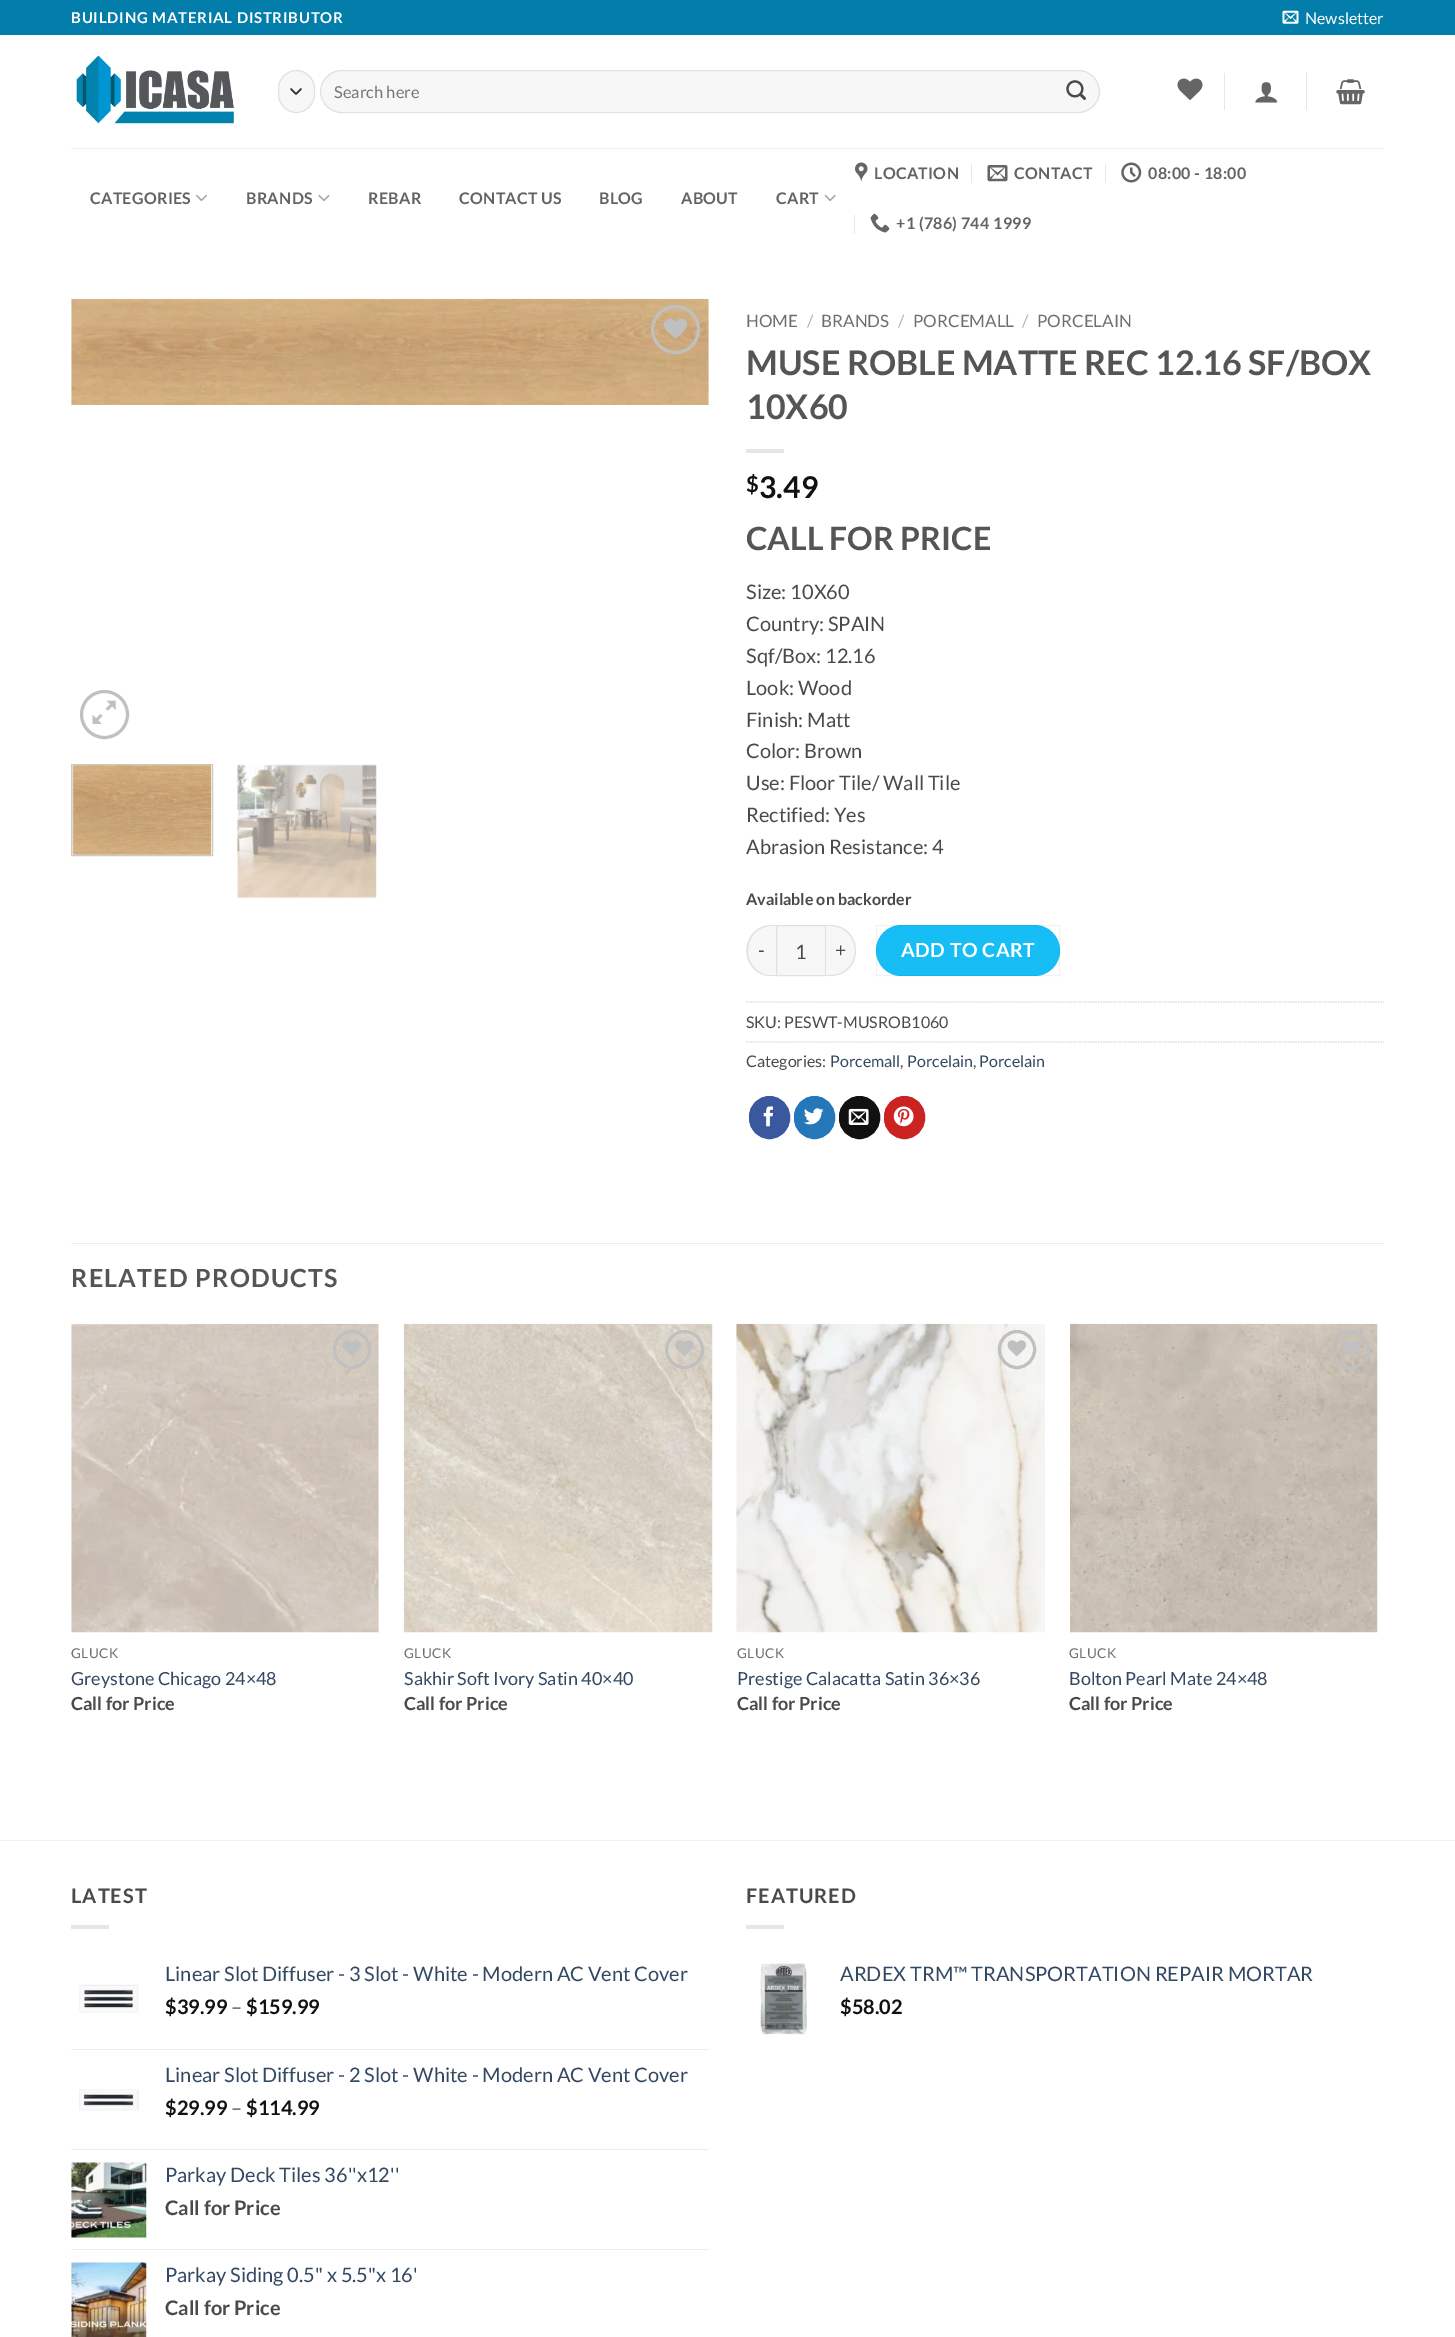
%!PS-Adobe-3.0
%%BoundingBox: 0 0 1455 2337
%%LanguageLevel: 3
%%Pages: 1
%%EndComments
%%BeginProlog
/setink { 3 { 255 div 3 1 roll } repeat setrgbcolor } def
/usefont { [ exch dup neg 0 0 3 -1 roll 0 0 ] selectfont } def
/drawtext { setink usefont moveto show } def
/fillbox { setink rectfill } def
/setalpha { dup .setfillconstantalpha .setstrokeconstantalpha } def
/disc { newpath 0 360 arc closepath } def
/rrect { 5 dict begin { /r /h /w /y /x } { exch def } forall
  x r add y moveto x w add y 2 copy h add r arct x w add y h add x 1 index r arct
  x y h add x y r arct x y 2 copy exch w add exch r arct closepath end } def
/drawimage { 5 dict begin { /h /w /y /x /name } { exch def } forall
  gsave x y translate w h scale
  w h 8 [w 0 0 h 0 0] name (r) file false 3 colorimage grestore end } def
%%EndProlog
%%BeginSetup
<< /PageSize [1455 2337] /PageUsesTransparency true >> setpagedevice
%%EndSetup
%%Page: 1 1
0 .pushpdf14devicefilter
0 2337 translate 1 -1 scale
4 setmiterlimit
0 0 1455 2337 255 255 255 fillbox
0 0 1455 35 3 126 171 fillbox
/Lato-Bold 15 usefont
255 255 255 setink
71 23 moveto 0.75 0 (BUILDING MATERIAL DISTRIBUTOR) ashow
(assets/img1.rgb) 1282 10 17 14 drawimage
(Newsletter) 1305 24 /Lato-Regular 16 255 255 255 drawtext
(assets/img2.rgb) 76 55 158 69 drawimage
247 247 247 setink
278 70 37 43 18.5 rrect fill
51 51 51 setink
1.7 setlinewidth
1 setlinecap
1 setlinejoin
291 89 moveto 296 94 lineto 301 89 lineto stroke
0.09 setalpha
0 0 0 setink
1 setlinewidth
0 setlinecap
0 setlinejoin
278.5 70.5 36 42 18 rrect stroke
1 setalpha
247 247 247 setink
320 70 780 43 21.5 rrect fill
0.09 setalpha
0 0 0 setink
320.5 70.5 779 42 21 rrect stroke
1 setalpha
(Search here) 334 98 /Lato-Regular 16.5 117 117 117 drawtext
(assets/img3.rgb) 1066 80 20 20 drawimage
(assets/img4.rgb) 1177 78 26 22 drawimage
1224 73 1 37 230 230 230 fillbox
(assets/img5.rgb) 1255 82 23 21 drawimage
1306 73 1 37 230 230 230 fillbox
(assets/img6.rgb) 1336 79 29 26 drawimage
71 148 1313 1 237 237 237 fillbox
/Lato-Bold 16 usefont
99 99 99 setink
90 204 moveto 0.3 0 (CATEGORIES) ashow
(assets/img7.rgb) 195 194 12 8 drawimage
246 204 moveto 0.3 0 (BRANDS) ashow
(assets/img8.rgb) 318 194 12 8 drawimage
368 204 moveto 0.3 0 (REBAR) ashow
459 204 moveto 0.3 0 (CONTACT US) ashow
599 204 moveto 0.3 0 (BLOG) ashow
681 204 moveto 0.3 0 (ABOUT) ashow
776 204 moveto 0.3 0 (CART) ashow
(assets/img9.rgb) 824 194 12 8 drawimage
(assets/img10.rgb) 855 162 13 20 drawimage
874 179 moveto 0.3 0 (LOCATION) ashow
971 164 1 19 230 230 230 fillbox
(assets/img11.rgb) 987 165 21 17 drawimage
99 99 99 setink
1014 179 moveto 0.3 0 (CONTACT) ashow
1105 164 1 19 230 230 230 fillbox
(assets/img12.rgb) 1121 162 21 21 drawimage
99 99 99 setink
1148 179 moveto 0.3 0 (08:00 - 18:00) ashow
854 215 1 19 230 230 230 fillbox
(assets/img13.rgb) 870 213 20 20 drawimage
99 99 99 setink
896 229 moveto 0.3 0 (+1 \(786\) 744 1999) ashow
(assets/img14.rgb) 71 298 638 107 drawimage
192 192 192 setink
3 setlinewidth
675.5 329.5 23 disc stroke
(assets/img15.rgb) 663 318 24 21 drawimage
104.5 714.5 23 disc stroke
(assets/img16.rgb) 92 700 24 24 drawimage
204 204 204 setink
1 setlinewidth
71.5 764.5 141 91 rectstroke
(assets/img17.rgb) 72 764 140 92 drawimage
(assets/img18.rgb) 237 764 140 134 drawimage
(HOME) 746 327 /Lato-Regular 17 110 110 110 drawtext
(/) 807 327 /Lato-Regular 17 178 178 178 drawtext
(BRANDS) 821 327 /Lato-Regular 17 110 110 110 drawtext
(/) 898 327 /Lato-Regular 17 178 178 178 drawtext
(PORCEMALL) 913 327 /Lato-Regular 17 110 110 110 drawtext
(/) 1022 327 /Lato-Regular 17 178 178 178 drawtext
(PORCELAIN) 1037 327 /Lato-Regular 17 110 110 110 drawtext
(MUSE ROBLE MATTE REC 12.16 SF/BOX) 746 375 /Lato-Bold 34 85 85 85 drawtext
(10X60) 746 419 /Lato-Bold 34 85 85 85 drawtext
746 449 38 4 230 230 230 fillbox
($) 746 492 /Lato-Bold 22 17 17 17 drawtext
(3.49) 759 498 /Lato-Bold 30 17 17 17 drawtext
(CALL FOR PRICE) 746 550 /Lato-Bold 32 85 85 85 drawtext
(Size: 10X60) 746 599 /Lato-Regular 20 74 74 74 drawtext
(Country: SPAIN) 746 631 /Lato-Regular 20 74 74 74 drawtext
(Sqf/Box: 12.16) 746 663 /Lato-Regular 20 74 74 74 drawtext
(Look: Wood) 746 695 /Lato-Regular 20 74 74 74 drawtext
(Finish: Matt) 746 727 /Lato-Regular 20 74 74 74 drawtext
(Color: Brown) 746 758 /Lato-Regular 20 74 74 74 drawtext
(Use: Floor Tile/ Wall Tile) 746 790 /Lato-Regular 20 74 74 74 drawtext
(Rectified: Yes) 746 822 /Lato-Regular 20 74 74 74 drawtext
(Abrasion Resistance: 4) 746 854 /Lato-Regular 20 74 74 74 drawtext
(Available on backorder) 746 905 /Lato-Bold 16 74 74 74 drawtext
247 247 247 setink
771.5 925 moveto 776 925 lineto 776 976 lineto 771.5 976 lineto 757.5 976 746 964.5 746 950.5 curveto 746 936.5 757.5 925 771.5 925 curveto closepath fill
0.09 setalpha
0 0 0 setink
772 925 moveto 776 925 lineto 776 976 lineto 767 976 lineto 737 970 741 925 772 925 curveto closepath 772 926 moveto 776 926 lineto 776 975 lineto 767 975 lineto 739 969 743 926 772 926 curveto closepath eofill
/Lato-Regular 19.5 usefont
1 setalpha
74 74 74 setink
758 957 moveto 0.5 0 (-) ashow
247 247 247 setink
776.5 925.5 moveto 825.5 925.5 lineto 825.5 975.5 lineto 776.5 975.5 lineto closepath gsave fill grestore
225 225 225 setink
stroke
(1) 795 959 /Lato-Regular 20 74 74 74 drawtext
247 247 247 setink
826 925 moveto 830.5 925 lineto 844.5 925 856 936.5 856 950.5 curveto 856 964.5 844.5 976 830.5 976 curveto 826 976 lineto closepath fill
0.09 setalpha
0 0 0 setink
826 925 moveto 831 925 lineto 845 925 856 936 856 951 curveto 856 965 845 976 831 976 curveto 826 976 lineto closepath 826 926 moveto 831 926 lineto 844 926 855 937 855 951 curveto 855 964 844 975 831 975 curveto 826 975 lineto closepath eofill
/Lato-Regular 19.5 usefont
1 setalpha
74 74 74 setink
835 957 moveto 0.5 0 (+) ashow
23 190 246 setink
876 925 184 51 25.5 rrect fill
0.05 setalpha
0 0 0 setink
876.5 925.5 183 50 rectstroke
/Lato-Bold 19.5 usefont
1 setalpha
255 255 255 setink
901 957 moveto 0.5 0 (ADD TO CART) ashow
221 221 221 setink
1.2 setlinewidth
[1.25 1.25] 0 setdash
746 1002 moveto 1384 1002 lineto stroke
(SKU: PESWT-MUSROB1060) 746 1028 /Lato-Regular 16 74 74 74 drawtext
221 221 221 setink
746 1042 moveto 1384 1042 lineto stroke
(Categories:) 746 1067 /Lato-Regular 16 74 74 74 drawtext
(Porcemall) 830 1067 /Lato-Regular 16 51 72 98 drawtext
(,) 900 1067 /Lato-Regular 16 74 74 74 drawtext
(Porcelain) 907 1067 /Lato-Regular 16 51 72 98 drawtext
(,) 973 1067 /Lato-Regular 16 74 74 74 drawtext
(Porcelain) 979 1067 /Lato-Regular 16 51 72 98 drawtext
58 88 157 setink
749.5 1096.5 40 42 20 rrect gsave fill grestore
1 setlinewidth
[] 0 setdash
stroke
(assets/img19.rgb) 763 1106 10 21 drawimage
36 120 186 setink
794.5 1096.5 40 42 20 rrect gsave fill grestore
stroke
(assets/img20.rgb) 804 1108 20 17 drawimage
17 17 17 setink
839.5 1096.5 40 42 20 rrect gsave fill grestore
stroke
(assets/img21.rgb) 848 1108 21 17 drawimage
203 35 32 setink
884.5 1096.5 40 42 20 rrect gsave fill grestore
stroke
(assets/img22.rgb) 893 1106 21 21 drawimage
71 1243 1313 1 236 236 236 fillbox
/Lato-Bold 25 usefont
85 85 85 setink
71 1287 moveto 1.25 0 (RELATED PRODUCTS) ashow
(assets/img23.rgb) 71 1323 308 310 drawimage
192 192 192 setink
3 setlinewidth
334.5 1331.5 35 36 17.5 rrect stroke
(assets/img24.rgb) 342 1340 19 16 drawimage
/Lato-Regular 13.5 usefont
110 110 110 setink
71 1658 moveto 0.5 0 (GLUCK) ashow
(Greystone Chicago 24×48) 71 1685 /Lato-Regular 18 51 72 98 drawtext
(Call for Price) 71 1710 /Lato-Bold 18 74 74 74 drawtext
(assets/img25.rgb) 403 1323 310 310 drawimage
192 192 192 setink
684.5 1349.5 18 disc stroke
(assets/img26.rgb) 675 1340 19 16 drawimage
/Lato-Regular 13.5 usefont
110 110 110 setink
404 1658 moveto 0.5 0 (GLUCK) ashow
(Sakhir Soft Ivory Satin 40×40) 404 1685 /Lato-Regular 18 51 72 98 drawtext
(Call for Price) 404 1710 /Lato-Bold 18 74 74 74 drawtext
(assets/img27.rgb) 736 1323 309 310 drawimage
192 192 192 setink
999.5 1331.5 35 36 17.5 rrect stroke
(assets/img28.rgb) 1007 1340 20 17 drawimage
/Lato-Regular 13.5 usefont
110 110 110 setink
737 1658 moveto 0.5 0 (GLUCK) ashow
(Prestige Calacatta Satin 36×36) 737 1685 /Lato-Regular 18 51 72 98 drawtext
(Call for Price) 737 1710 /Lato-Bold 18 74 74 74 drawtext
(assets/img29.rgb) 1070 1323 308 310 drawimage
192 192 192 setink
1350.5 1349.5 18 disc stroke
(assets/img30.rgb) 1341 1340 19 16 drawimage
/Lato-Regular 13.5 usefont
110 110 110 setink
1069 1658 moveto 0.5 0 (GLUCK) ashow
(Bolton Pearl Mate 24×48) 1069 1685 /Lato-Regular 18 51 72 98 drawtext
(Call for Price) 1069 1710 /Lato-Bold 18 74 74 74 drawtext
0 1840 1455 1 242 242 242 fillbox
/Lato-Bold 20 usefont
74 74 74 setink
71 1903 moveto 1 0 (LATEST) ashow
71 1925 38 4 230 230 230 fillbox
(Linear Slot Diffuser - 3 Slot - White - Modern AC Vent Cover) 165 1981 /Lato-Regular 20 51 72 98 drawtext
(assets/img31.rgb) 79 1984 60 29 drawimage
($39.99) 165 2014 /Lato-Bold 20 17 17 17 drawtext
(–) 231 2014 /Lato-Regular 20 74 74 74 drawtext
($159.99) 246 2014 /Lato-Bold 20 17 17 17 drawtext
71 2049 638 1 236 236 236 fillbox
(Linear Slot Diffuser - 2 Slot - White - Modern AC Vent Cover) 165 2082 /Lato-Regular 20 51 72 98 drawtext
(assets/img32.rgb) 79 2089 60 22 drawimage
($29.99) 165 2115 /Lato-Bold 20 17 17 17 drawtext
(–) 231 2115 /Lato-Regular 20 74 74 74 drawtext
($114.99) 246 2115 /Lato-Bold 20 17 17 17 drawtext
71 2149 638 1 236 236 236 fillbox
(assets/img33.rgb) 71 2162 76 76 drawimage
(Parkay Deck Tiles 36''x12'') 165 2182 /Lato-Regular 20 51 72 98 drawtext
(Call for Price) 165 2215 /Lato-Bold 20 74 74 74 drawtext
71 2249 638 1 236 236 236 fillbox
(assets/img34.rgb) 71 2262 76 75 drawimage
(Parkay Siding 0.5" x 5.5"x 16') 165 2282 /Lato-Regular 20 51 72 98 drawtext
(Call for Price) 165 2315 /Lato-Bold 20 74 74 74 drawtext
746 1903 moveto 1 0 (FEATURED) ashow
746 1925 38 4 230 230 230 fillbox
(assets/img35.rgb) 760 1963 47 72 drawimage
(ARDEX TRM™ TRANSPORTATION REPAIR MORTAR) 840 1981 /Lato-Regular 20 51 72 98 drawtext
($58.02) 840 2014 /Lato-Bold 20 17 17 17 drawtext
.poppdf14devicefilter showpage
%%EOF
